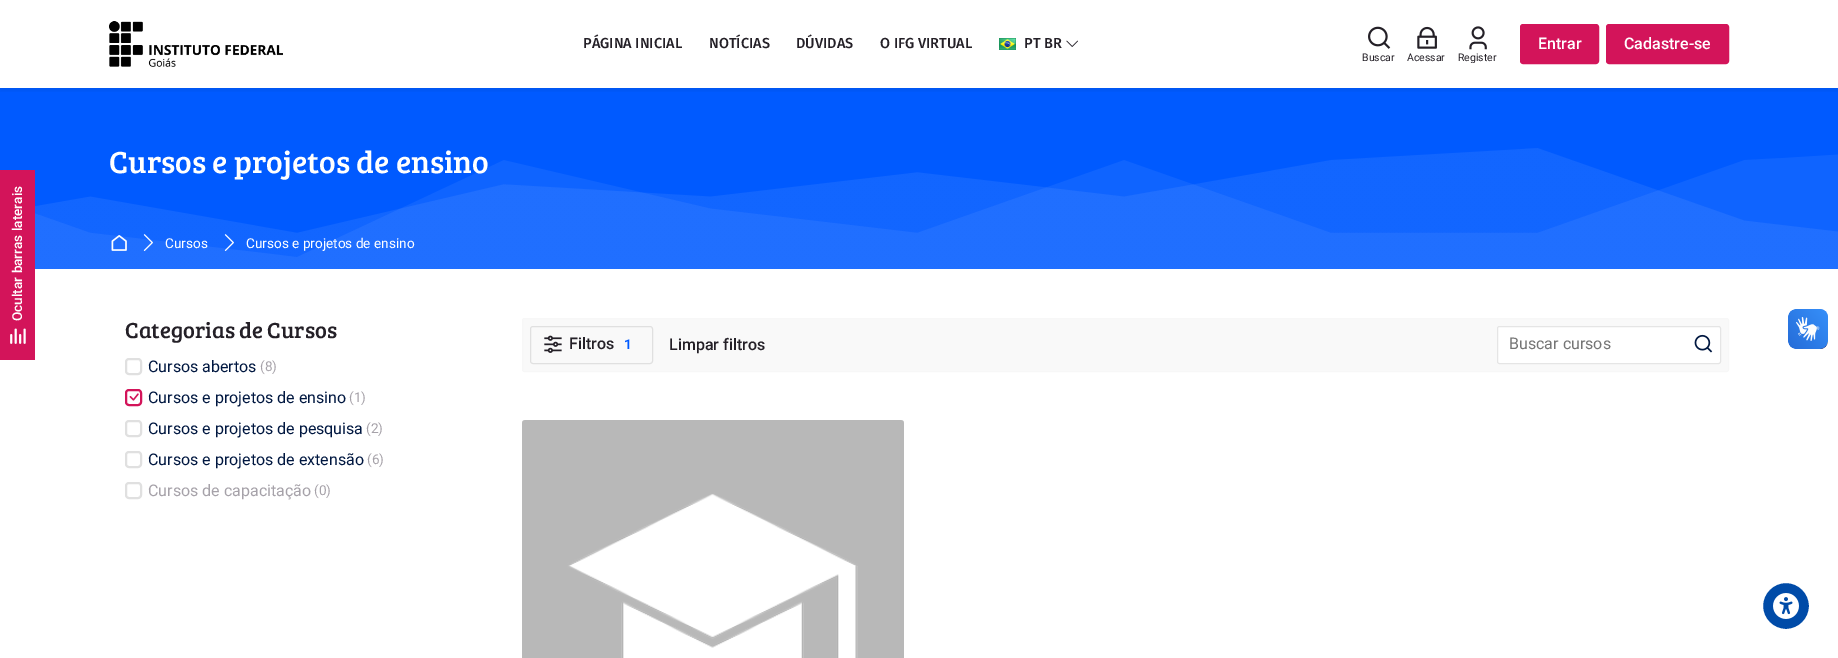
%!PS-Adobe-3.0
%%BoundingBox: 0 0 1838 658
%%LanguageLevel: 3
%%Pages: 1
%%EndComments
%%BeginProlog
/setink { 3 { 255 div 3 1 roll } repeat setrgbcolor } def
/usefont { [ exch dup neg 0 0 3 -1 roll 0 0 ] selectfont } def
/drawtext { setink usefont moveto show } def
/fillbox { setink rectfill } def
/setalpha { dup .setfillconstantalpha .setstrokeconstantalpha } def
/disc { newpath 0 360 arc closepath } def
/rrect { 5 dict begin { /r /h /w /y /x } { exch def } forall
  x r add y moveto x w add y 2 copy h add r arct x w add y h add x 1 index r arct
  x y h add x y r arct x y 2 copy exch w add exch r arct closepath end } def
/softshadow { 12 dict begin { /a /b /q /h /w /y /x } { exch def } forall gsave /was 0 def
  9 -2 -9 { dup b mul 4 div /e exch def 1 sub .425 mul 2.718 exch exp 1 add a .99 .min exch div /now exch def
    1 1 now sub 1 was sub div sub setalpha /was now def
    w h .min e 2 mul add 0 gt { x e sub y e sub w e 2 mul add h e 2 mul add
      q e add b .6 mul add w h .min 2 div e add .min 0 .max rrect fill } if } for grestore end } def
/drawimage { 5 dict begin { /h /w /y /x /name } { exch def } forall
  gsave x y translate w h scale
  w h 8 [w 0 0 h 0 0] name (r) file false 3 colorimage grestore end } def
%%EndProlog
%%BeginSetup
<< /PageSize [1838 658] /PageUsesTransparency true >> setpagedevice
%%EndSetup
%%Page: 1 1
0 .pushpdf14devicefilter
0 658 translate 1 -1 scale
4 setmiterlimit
0 0 1838 658 255 255 255 fillbox
0 88 1838 181 0 90 255 fillbox
0 170 35 190 211 20 90 fillbox
/Roboto-Medium 13.6 usefont
255 255 255 setink
gsave 22 321 translate -90 rotate 0 0 moveto (Ocultar barras laterais) show grestore
(assets/img1.rgb) 10 328 16 16 drawimage
gsave
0 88 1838 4 rectclip
0 0 0 setink
0 3 1838 88 0 2.5 0.05 softshadow
grestore
(assets/img2.rgb) 109 21 174 46 drawimage
(PÁGINA INICIAL) 583 48 /FiraSans-Medium 14.5 36 32 39 drawtext
(NOTÍCIAS) 709 48 /FiraSans-Medium 14.5 36 32 39 drawtext
(DÚVIDAS) 796 48 /FiraSans-Medium 14.5 36 32 39 drawtext
(O IFG VIRTUAL) 880 48 /FiraSans-Medium 14.5 36 32 39 drawtext
(assets/img3.rgb) 999 38 17 12 drawimage
(PT BR) 1024 48 /FiraSans-Medium 14.5 36 32 39 drawtext
(assets/img4.rgb) 1066 40 12 7 drawimage
211 20 90 setink
1521 25 77 38 2 rrect gsave fill grestore
2 setlinewidth
stroke
(Entrar) 1538 49 /Roboto-Medium 16 255 255 255 drawtext
211 20 90 setink
1607 25 121 38 2 rrect gsave fill grestore
stroke
(Cadastre-se) 1624 49 /Roboto-Medium 16 255 255 255 drawtext
(assets/img5.rgb) 1368 26 23 23 drawimage
(Buscar) 1362 61 /Roboto-Regular 10.5 36 32 39 drawtext
(assets/img6.rgb) 1417 26 20 23 drawimage
(Acessar) 1407 61 /Roboto-Regular 10.5 36 32 39 drawtext
(assets/img7.rgb) 1469 26 18 24 drawimage
gsave
1458 53 39 10 rectclip
(Register) 1458 61 /Roboto-Regular 10.5 36 32 39 drawtext
grestore
(assets/img8.rgb) 35 148 1803 121 drawimage
(Cursos e projetos de ensino) 109 173 /BreeSerif-Regular 31.5 255 255 255 drawtext
(assets/img9.rgb) 111 235 16 16 drawimage
(assets/img10.rgb) 143 234 10 17 drawimage
(Cursos) 165 248 /Roboto-Regular 13.6 255 255 255 drawtext
(assets/img11.rgb) 224 234 10 17 drawimage
(Cursos e projetos de ensino) 246 248 /Roboto-Regular 13.6 255 255 255 drawtext
(Categorias de Cursos) 125 338 /BreeSerif-Regular 22.5 36 32 39 drawtext
224 224 224 setink
126 359 15 15 3 rrect stroke
(Cursos abertos) 148 372 /Roboto-Regular 16 0 23 64 drawtext
(\(8\)) 260 371 /Roboto-Regular 13.6 166 162 169 drawtext
211 20 90 setink
126 390 15 15 3 rrect stroke
(assets/img12.rgb) 129 393 10 8 drawimage
(Cursos e projetos de ensino) 148 403 /Roboto-Regular 16 0 23 64 drawtext
(\(1\)) 349 402 /Roboto-Regular 13.6 166 162 169 drawtext
224 224 224 setink
126 421 15 15 3 rrect stroke
(Cursos e projetos de pesquisa) 148 434 /Roboto-Regular 16 0 23 64 drawtext
(\(2\)) 366 433 /Roboto-Regular 13.6 166 162 169 drawtext
224 224 224 setink
126 452 15 15 3 rrect stroke
(Cursos e projetos de extensão) 148 465 /Roboto-Regular 16 0 23 64 drawtext
(\(6\)) 367 464 /Roboto-Regular 13.6 166 162 169 drawtext
224 224 224 setink
126 483 15 15 3 rrect stroke
(Cursos de capacitação) 148 496 /Roboto-Regular 16 166 162 169 drawtext
(\(0\)) 314 495 /Roboto-Regular 13.6 166 162 169 drawtext
249 249 249 setink
522.5 318.5 1206 53 2 rrect gsave fill grestore
247 247 247 setink
1 setlinewidth
stroke
224 224 224 setink
530.5 326.5 122 37 2.5 rrect stroke
(assets/img13.rgb) 544 335 18 18 drawimage
(Filtros) 569 349 /Roboto-Medium 16 36 32 39 drawtext
(1) 624 349 /Roboto-Bold 13.6 0 90 255 drawtext
(Limpar filtros) 669 350 /Roboto-Medium 16 36 32 39 drawtext
255 255 255 setink
1497.5 326.5 223 37 2 rrect gsave fill grestore
229 229 229 setink
stroke
(Buscar cursos) 1509 349 /Roboto-Regular 16 117 117 117 drawtext
(assets/img14.rgb) 1694 334 19 19 drawimage
(assets/img15.rgb) 522 420 382 238 drawimage
(assets/img16.rgb) 1788 309 40 40 drawimage
(assets/img17.rgb) 1788 309 40 40 drawimage
0 75 168 setink
1786 606 24 disc gsave fill grestore
255 255 255 setink
2 setlinewidth
stroke
(assets/img18.rgb) 1773 593 26 26 drawimage
.poppdf14devicefilter showpage
%%EOF
